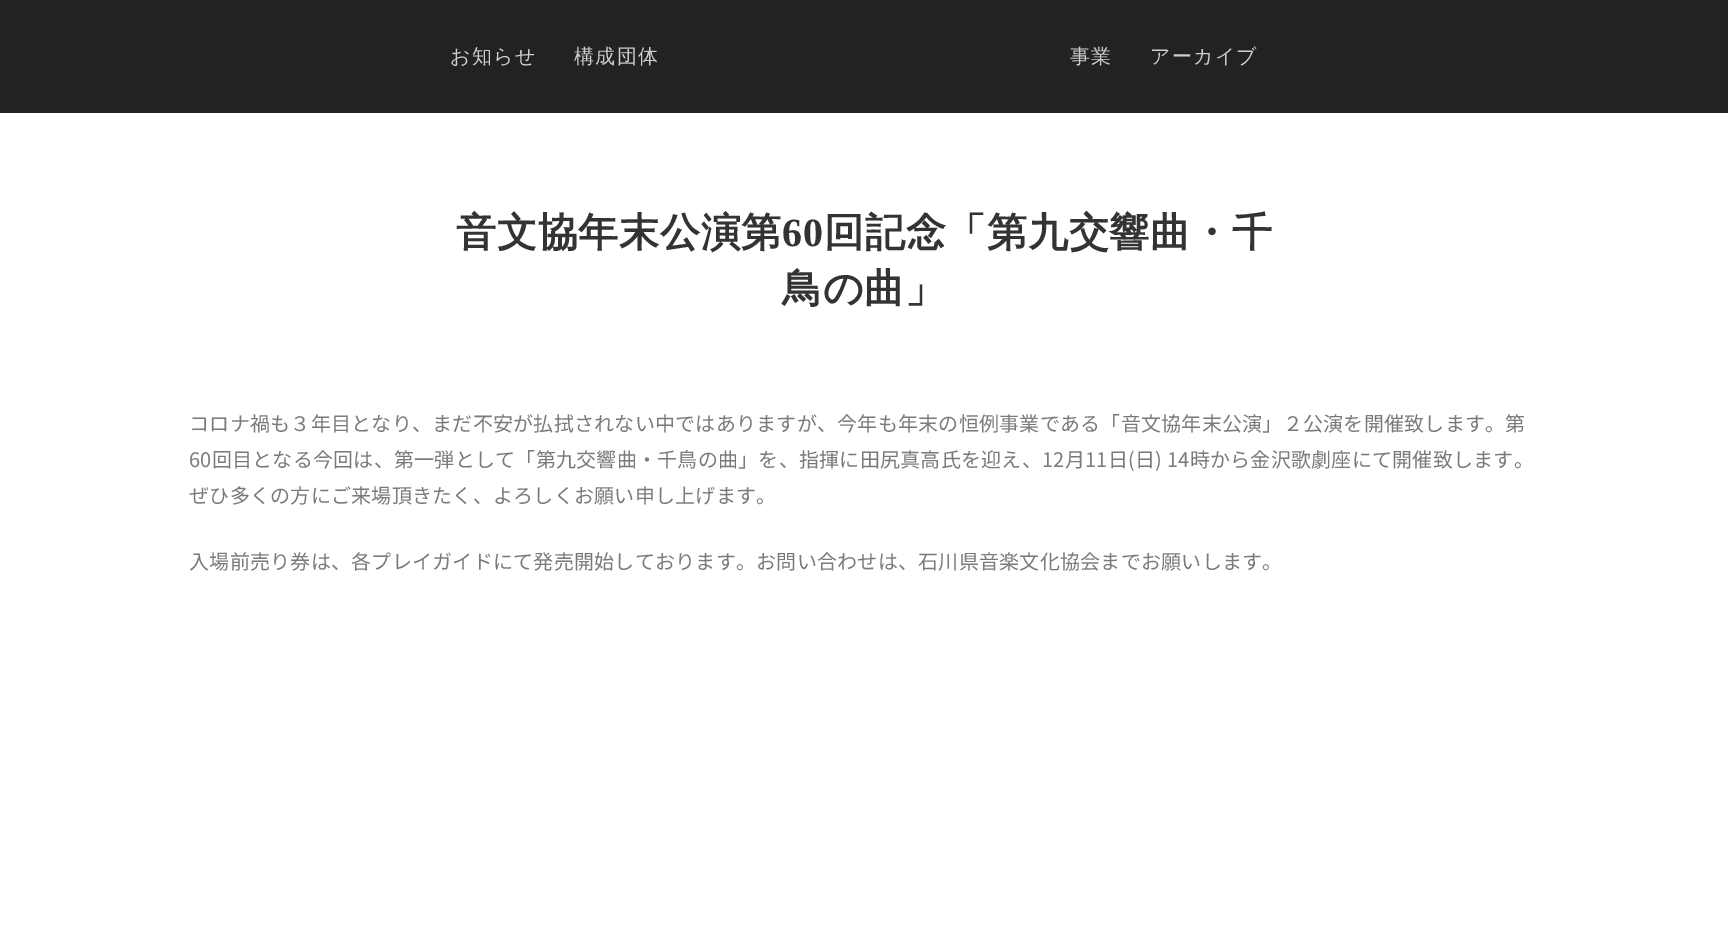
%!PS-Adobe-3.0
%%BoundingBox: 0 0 1728 952
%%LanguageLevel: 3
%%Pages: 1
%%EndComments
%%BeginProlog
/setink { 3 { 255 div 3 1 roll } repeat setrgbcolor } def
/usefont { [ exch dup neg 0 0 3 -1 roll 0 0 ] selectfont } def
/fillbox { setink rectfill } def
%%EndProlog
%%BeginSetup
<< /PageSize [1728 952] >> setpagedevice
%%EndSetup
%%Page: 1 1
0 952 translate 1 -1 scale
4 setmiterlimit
0 0 1728 952 255 255 255 fillbox
0 0 1728 113 34 34 34 fillbox
/WenQuanYiZenHei-Medium 20 usefont
206 206 206 setink
450 63 moveto 1.25 0 (お知らせ) ashow
574 63 moveto 1.25 0 (構成団体) ashow
1070 63 moveto 1.25 0 (事業) ashow
1150 63 moveto 1.25 0 (アーカイブ) ashow
/WenQuanYiZenHei-Bold 40 usefont
51 51 51 setink
456 246 moveto 0.75 0 (音文協年末公演第) ashow
/LiberationSerif-Bold 40 usefont
782 246 moveto 0.75 0 (60) ashow
/WenQuanYiZenHei-Bold 40 usefont
824 246 moveto 0.75 0 (回記念「第九交響曲・千) ashow
782 302 moveto 0.75 0 (鳥の曲」) ashow
/NotoSansJP-Regular 20 usefont
122 122 122 setink
189 431 moveto 0.25 0 (コロナ禍も３年目となり、まだ不安が払拭されない中ではありますが、今年も年末の恒例事業である「音文協年末公演」２公演を開催致します。第) ashow
189 467 moveto 0.25 0 (60回目となる今回は、第一弾として「第九交響曲・千鳥の曲」を、指揮に田尻真高氏を迎え、12月11日\(日\) 14時から金沢歌劇座にて開催致します。) ashow
189 503 moveto 0.25 0 (ぜひ多くの方にご来場頂きたく、よろしくお願い申し上げます。) ashow
189 569 moveto 0.25 0 (入場前売り券は、各プレイガイドにて発売開始しております。お問い合わせは、石川県音楽文化協会までお願いします。) ashow
showpage
%%EOF
